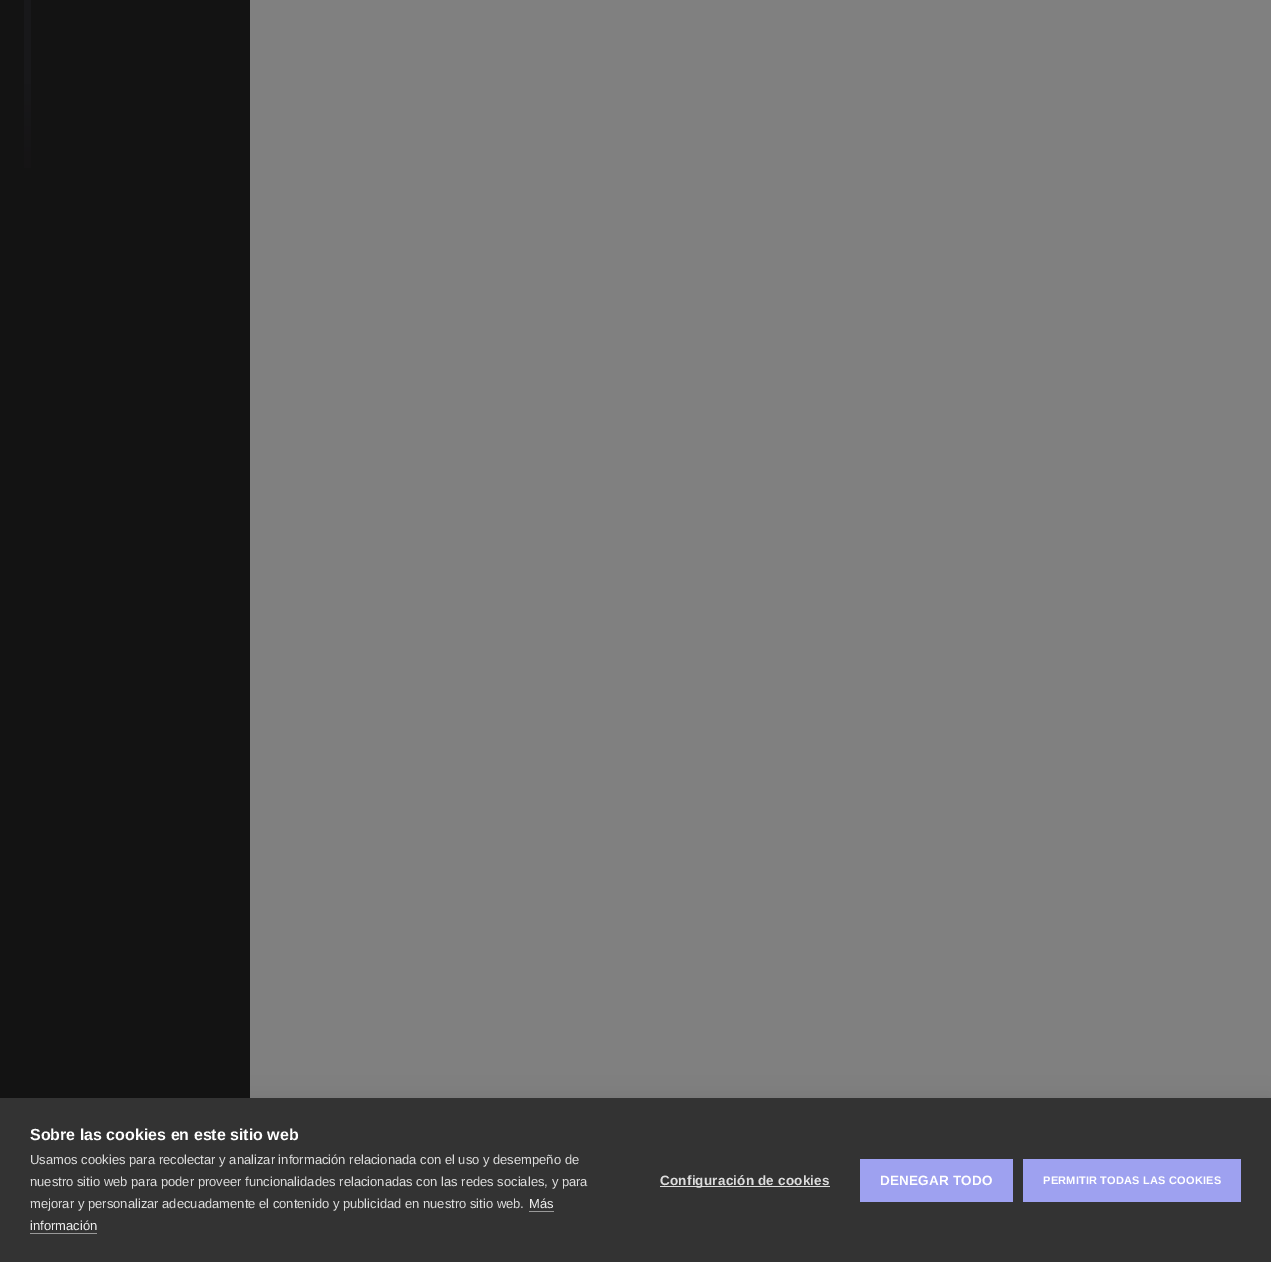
%!PS-Adobe-3.0
%%BoundingBox: 0 0 1271 1262
%%LanguageLevel: 3
%%Pages: 1
%%EndComments
%%BeginProlog
/setink { 3 { 255 div 3 1 roll } repeat setrgbcolor } def
/usefont { [ exch dup neg 0 0 3 -1 roll 0 0 ] selectfont } def
/drawtext { setink usefont moveto show } def
/fillbox { setink rectfill } def
/setalpha { dup .setfillconstantalpha .setstrokeconstantalpha } def
/rrect { 5 dict begin { /r /h /w /y /x } { exch def } forall
  x r add y moveto x w add y 2 copy h add r arct x w add y h add x 1 index r arct
  x y h add x y r arct x y 2 copy exch w add exch r arct closepath end } def
/softshadow { 12 dict begin { /a /b /q /h /w /y /x } { exch def } forall gsave /was 0 def
  9 -2 -9 { dup b mul 4 div /e exch def 1 sub .425 mul 2.718 exch exp 1 add a .99 .min exch div /now exch def
    1 1 now sub 1 was sub div sub setalpha /was now def
    w h .min e 2 mul add 0 gt { x e sub y e sub w e 2 mul add h e 2 mul add
      q e add b .6 mul add w h .min 2 div e add .min 0 .max rrect fill } if } for grestore end } def
%%EndProlog
%%BeginSetup
<< /PageSize [1271 1262] /PageUsesTransparency true >> setpagedevice
%%EndSetup
%%Page: 1 1
0 .pushpdf14devicefilter
0 1262 translate 1 -1 scale
4 setmiterlimit
0 0 1271 1262 128 128 128 fillbox
0 0 250 1098 19 19 19 fillbox
gsave 24 0 moveto 31 0 lineto 31 168 lineto 24 168 lineto closepath clip newpath
<< /ShadingType 2 /ColorSpace /DeviceRGB /Coords [24 0 25 168] /Extend [true true] /Function << /FunctionType 3 /Domain [0 1] /Functions [<< /FunctionType 2 /Domain [0 1] /C0 [0.094 0.094 0.102] /C1 [0.094 0.094 0.102] /N 1 >> << /FunctionType 2 /Domain [0 1] /C0 [0.094 0.094 0.102] /C1 [0.082 0.078 0.082] /N 1 >>] /Bounds [0.5] /Encode [0 1 0 1] >> >> shfill grestore
0 0 0 setink
0 1098 1271 164 0 10 0.1 softshadow
0 1098 1271 164 51 51 51 fillbox
(Sobre las cookies en este sitio web) 30 1140 /LiberationSans-Bold 16 255 255 255 drawtext
(Usamos cookies para recolectar y analizar información relacionada con el uso y desempeño de) 30 1164 /LiberationSans-Regular 13 221 221 221 drawtext
(nuestro sitio web para poder proveer funcionalidades relacionadas con las redes sociales, y para) 30 1186 /LiberationSans-Regular 13 221 221 221 drawtext
(mejorar y personalizar adecuadamente el contenido y publicidad en nuestro sitio web.) 30 1208 /LiberationSans-Regular 13 221 221 221 drawtext
(Más) 529 1208 /LiberationSans-Regular 13 238 238 238 drawtext
529 1211 25 1 153 153 153 fillbox
(información) 30 1230 /LiberationSans-Regular 13 238 238 238 drawtext
30 1233 67 1 153 153 153 fillbox
660 1186 170 1 221 221 221 fillbox
/LiberationSans-Bold 13.5 usefont
660 1185 moveto 0.2 0 (Configuración de cookies) ashow
860 1159 153 43 158 161 240 fillbox
255 255 255 setink
880 1185 moveto 0.2 0 (DENEGAR TODO) ashow
1023 1159 218 43 158 161 240 fillbox
/LiberationSans-Bold 11 usefont
255 255 255 setink
1043 1184 moveto 0.2 0 (PERMITIR TODAS LAS COOKIES) ashow
.poppdf14devicefilter showpage
%%EOF
